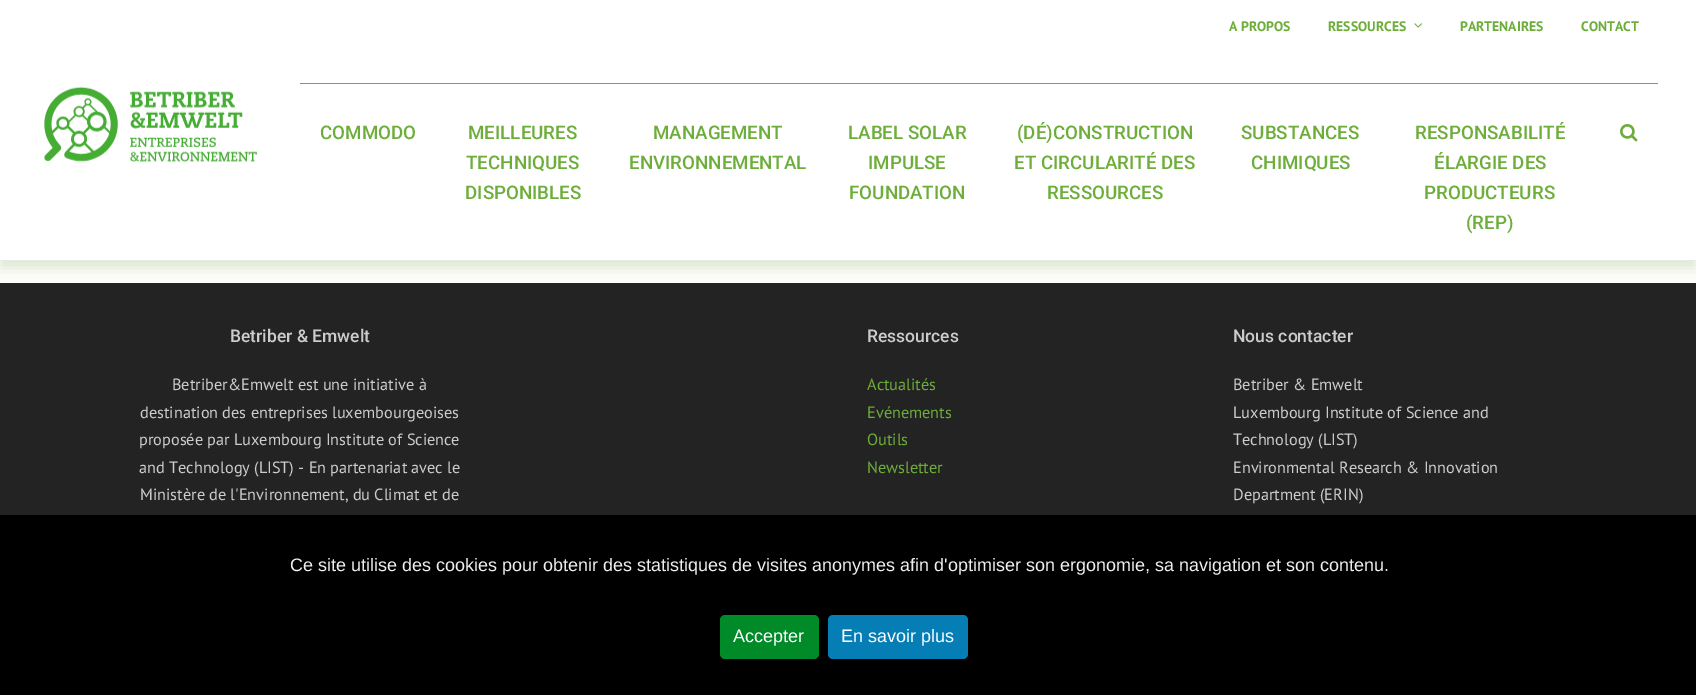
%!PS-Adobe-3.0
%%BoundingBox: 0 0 1696 695
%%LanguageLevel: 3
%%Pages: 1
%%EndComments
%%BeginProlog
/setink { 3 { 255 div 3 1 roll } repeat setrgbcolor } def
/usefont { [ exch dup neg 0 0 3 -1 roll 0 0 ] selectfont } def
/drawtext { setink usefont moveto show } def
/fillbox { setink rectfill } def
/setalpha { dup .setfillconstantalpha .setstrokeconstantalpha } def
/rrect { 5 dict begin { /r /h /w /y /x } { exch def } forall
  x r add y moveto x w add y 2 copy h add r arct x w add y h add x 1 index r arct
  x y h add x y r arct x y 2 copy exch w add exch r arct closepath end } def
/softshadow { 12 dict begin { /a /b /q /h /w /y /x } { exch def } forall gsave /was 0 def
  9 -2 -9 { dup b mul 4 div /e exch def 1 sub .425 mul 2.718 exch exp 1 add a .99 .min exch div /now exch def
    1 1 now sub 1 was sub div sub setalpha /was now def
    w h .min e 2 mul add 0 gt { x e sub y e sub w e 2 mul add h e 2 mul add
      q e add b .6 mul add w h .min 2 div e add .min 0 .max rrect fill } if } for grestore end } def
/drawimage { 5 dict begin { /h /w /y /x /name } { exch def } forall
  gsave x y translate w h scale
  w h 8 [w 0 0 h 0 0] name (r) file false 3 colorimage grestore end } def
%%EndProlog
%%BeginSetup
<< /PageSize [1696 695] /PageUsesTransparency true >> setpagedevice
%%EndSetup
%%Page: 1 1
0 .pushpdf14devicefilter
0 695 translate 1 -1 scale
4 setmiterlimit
0 0 1696 695 255 255 255 fillbox
0 283 1696 232 35 35 35 fillbox
116 165 53 setink
0 6 1696 262 0 7.5 0.25 softshadow
0 0 1696 260 255 255 255 fillbox
0 260 1696 1 224 237 237 fillbox
(A PROPOS) 1229 31 /PTSans-Bold 13.75 109 173 58 drawtext
(RESSOURCES) 1328 31 /PTSans-Bold 13.75 109 173 58 drawtext
(assets/img1.rgb) 1414 23 8 5 drawimage
(PARTENAIRES) 1460 31 /PTSans-Bold 13.75 109 173 58 drawtext
(CONTACT) 1581 31 /PTSans-Bold 13.75 109 173 58 drawtext
(assets/img2.rgb) 44 86 213 76 drawimage
300 83 1358 1 109 173 58 fillbox
(COMMODO) 320 139 /Roboto-Medium 18.75 109 173 58 drawtext
(MEILLEURES) 468 139 /Roboto-Medium 18.75 109 173 58 drawtext
(TECHNIQUES) 466 169 /Roboto-Medium 18.75 109 173 58 drawtext
(DISPONIBLES) 465 199 /Roboto-Medium 18.75 109 173 58 drawtext
(MANAGEMENT) 653 139 /Roboto-Medium 18.75 109 173 58 drawtext
(ENVIRONNEMENTAL) 629 169 /Roboto-Medium 18.75 109 173 58 drawtext
(LABEL SOLAR) 848 139 /Roboto-Medium 18.75 109 173 58 drawtext
(IMPULSE) 868 169 /Roboto-Medium 18.75 109 173 58 drawtext
(FOUNDATION) 849 199 /Roboto-Medium 18.75 109 173 58 drawtext
(\(DÉ\)CONSTRUCTION) 1017 139 /Roboto-Medium 18.75 109 173 58 drawtext
(ET CIRCULARITÉ DES) 1014 169 /Roboto-Medium 18.75 109 173 58 drawtext
(RESSOURCES) 1047 199 /Roboto-Medium 18.75 109 173 58 drawtext
(SUBSTANCES) 1241 139 /Roboto-Medium 18.75 109 173 58 drawtext
(CHIMIQUES) 1251 169 /Roboto-Medium 18.75 109 173 58 drawtext
(RESPONSABILITÉ) 1415 139 /Roboto-Medium 18.75 109 173 58 drawtext
(ÉLARGIE DES) 1434 169 /Roboto-Medium 18.75 109 173 58 drawtext
(PRODUCTEURS) 1424 199 /Roboto-Medium 18.75 109 173 58 drawtext
(\(REP\)) 1466 229 /Roboto-Medium 18.75 109 173 58 drawtext
(assets/img3.rgb) 1620 124 18 18 drawimage
(Betriber & Emwelt) 230 342 /Roboto-Medium 17.5 204 204 204 drawtext
(Betriber&Emwelt est une initiative à) 172 390 /PTSans-Regular 16.25 204 204 204 drawtext
(destination des entreprises luxembourgeoises) 140 418 /PTSans-Regular 16.25 204 204 204 drawtext
(proposée par Luxembourg Institute of Science) 139 445 /PTSans-Regular 16.25 204 204 204 drawtext
(and Technology \(LIST\) - En partenariat avec le) 139 473 /PTSans-Regular 16.25 204 204 204 drawtext
(Ministère de l'Environnement, du Climat et de) 140 500 /PTSans-Regular 16.25 204 204 204 drawtext
(Ressources) 867 342 /Roboto-Medium 17.5 204 204 204 drawtext
(Actualités) 867 390 /PTSans-Regular 16.25 109 173 58 drawtext
(Evénements) 867 418 /PTSans-Regular 16.25 109 173 58 drawtext
(Outils) 867 445 /PTSans-Regular 16.25 109 173 58 drawtext
(Newsletter) 867 473 /PTSans-Regular 16.25 109 173 58 drawtext
(Nous contacter) 1233 342 /Roboto-Medium 17.5 204 204 204 drawtext
(Betriber & Emwelt) 1233 390 /PTSans-Regular 16.25 204 204 204 drawtext
(Luxembourg Institute of Science and) 1233 418 /PTSans-Regular 16.25 204 204 204 drawtext
(Technology \(LIST\)) 1233 445 /PTSans-Regular 16.25 204 204 204 drawtext
(Environmental Research & Innovation) 1233 473 /PTSans-Regular 16.25 204 204 204 drawtext
(Department \(ERIN\)) 1233 500 /PTSans-Regular 16.25 204 204 204 drawtext
0 515 1696 180 0 0 0 fillbox
(Ce site utilise des cookies pour obtenir des statistiques de visites anonymes afin d'optimiser son ergonomie, sa navigation et son contenu.) 290 571 /LiberationSans-Regular 18 238 238 238 drawtext
0 138 40 setink
720 615 99 44 5 rrect fill
(Accepter) 733 642 /LiberationSans-Regular 18 255 255 255 drawtext
5 126 182 setink
828 615 140 44 5 rrect fill
(En savoir plus) 841 642 /LiberationSans-Regular 18 255 255 255 drawtext
.poppdf14devicefilter showpage
%%EOF
